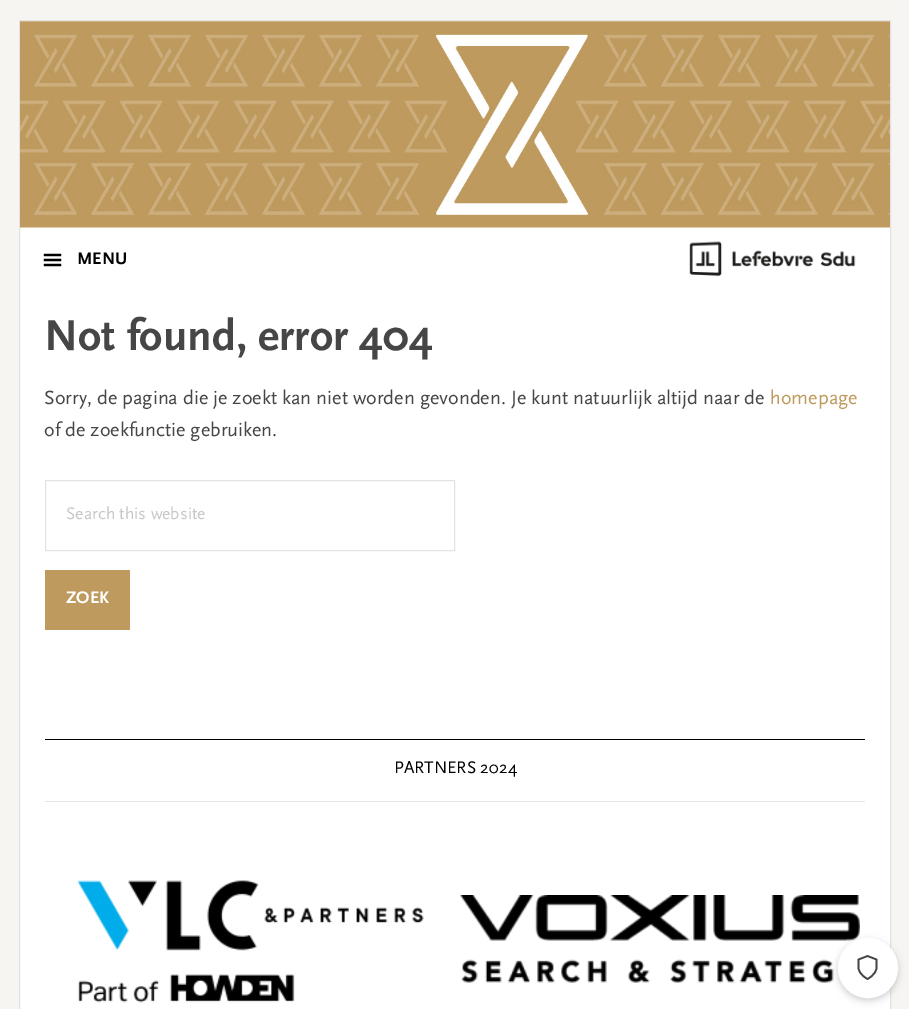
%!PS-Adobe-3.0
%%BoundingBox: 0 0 909 1009
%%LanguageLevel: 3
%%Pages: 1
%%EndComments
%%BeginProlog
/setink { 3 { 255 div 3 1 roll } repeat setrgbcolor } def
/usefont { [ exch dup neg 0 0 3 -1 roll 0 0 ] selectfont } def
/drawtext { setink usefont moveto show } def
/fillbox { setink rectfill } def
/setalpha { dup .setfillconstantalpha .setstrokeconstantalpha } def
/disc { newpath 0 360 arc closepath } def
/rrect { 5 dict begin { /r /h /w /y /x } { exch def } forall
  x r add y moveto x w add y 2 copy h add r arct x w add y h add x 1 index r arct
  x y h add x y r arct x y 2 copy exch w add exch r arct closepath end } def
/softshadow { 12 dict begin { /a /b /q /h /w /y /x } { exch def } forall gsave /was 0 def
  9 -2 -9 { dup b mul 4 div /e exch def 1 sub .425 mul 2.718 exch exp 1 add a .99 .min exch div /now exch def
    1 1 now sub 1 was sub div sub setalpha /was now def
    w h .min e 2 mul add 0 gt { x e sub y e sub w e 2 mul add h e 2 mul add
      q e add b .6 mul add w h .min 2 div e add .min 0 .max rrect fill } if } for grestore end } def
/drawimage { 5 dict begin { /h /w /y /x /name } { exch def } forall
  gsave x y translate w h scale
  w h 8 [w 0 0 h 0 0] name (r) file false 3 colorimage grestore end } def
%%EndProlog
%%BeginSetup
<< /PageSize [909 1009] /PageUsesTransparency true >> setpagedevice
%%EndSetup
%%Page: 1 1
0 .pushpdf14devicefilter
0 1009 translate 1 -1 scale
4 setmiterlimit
0 0 909 1009 246 245 242 fillbox
255 255 255 setink
19.5 20.5 moveto 890.5 20.5 lineto 890.5 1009.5 lineto 19.5 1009.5 lineto closepath gsave fill grestore
227 227 227 setink
stroke
(assets/img1.rgb) 20 21 870 207 drawimage
(assets/img2.rgb) 43 253 19 14 drawimage
(MENU) 77 264 /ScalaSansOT-Bold 17.5 0 0 0 drawtext
(assets/img3.rgb) 689 241 167 35 drawimage
(Not found, error 404) 44 350 /ScalaSansOT-Bold 45 70 70 70 drawtext
(Sorry, de pagina die je zoekt kan niet worden gevonden. Je kunt natuurlijk altijd naar de) 44 404 /ScalaSansOT-Regular 20 70 70 70 drawtext
(homepage) 770 404 /ScalaSansOT-Regular 20 190 154 94 drawtext
(of de zoekfunctie gebruiken.) 44 436 /ScalaSansOT-Regular 20 70 70 70 drawtext
227 227 227 setink
45.5 480.5 409 70 rectstroke
(Search this website) 66 519 /ScalaSansOT-Regular 17.5 200 200 200 drawtext
45 570 85 60 190 154 94 fillbox
(ZOEK) 66 603 /ScalaSansOT-Bold 17.5 255 255 255 drawtext
45 739 820 1 0 0 0 fillbox
45 801 820 1 227 227 227 fillbox
(PARTNERS 2024) 394 773 /ScalaSansOT-Regular 17.5 0 0 0 drawtext
(assets/img4.rgb) 77 880 347 123 drawimage
(assets/img5.rgb) 460 895 400 88 drawimage
838 940 60 60 30 2.5 0.08 softshadow
838 941 60 60 30 4 0.1 softshadow
255 255 255 setink
868 968 29.5 disc gsave fill grestore
stroke
70 70 70 setink
1.7 setlinewidth
1 setlinecap
1 setlinejoin
867.5 979 moveto 867.5 979 876.5 974.5 876.5 967.5 curveto 876.5 959.5 lineto 867.5 956 lineto 858.5 959.5 lineto 858.5 967.5 lineto 858.5 974.5 867.5 979 867.5 979 curveto stroke
.poppdf14devicefilter showpage
%%EOF
